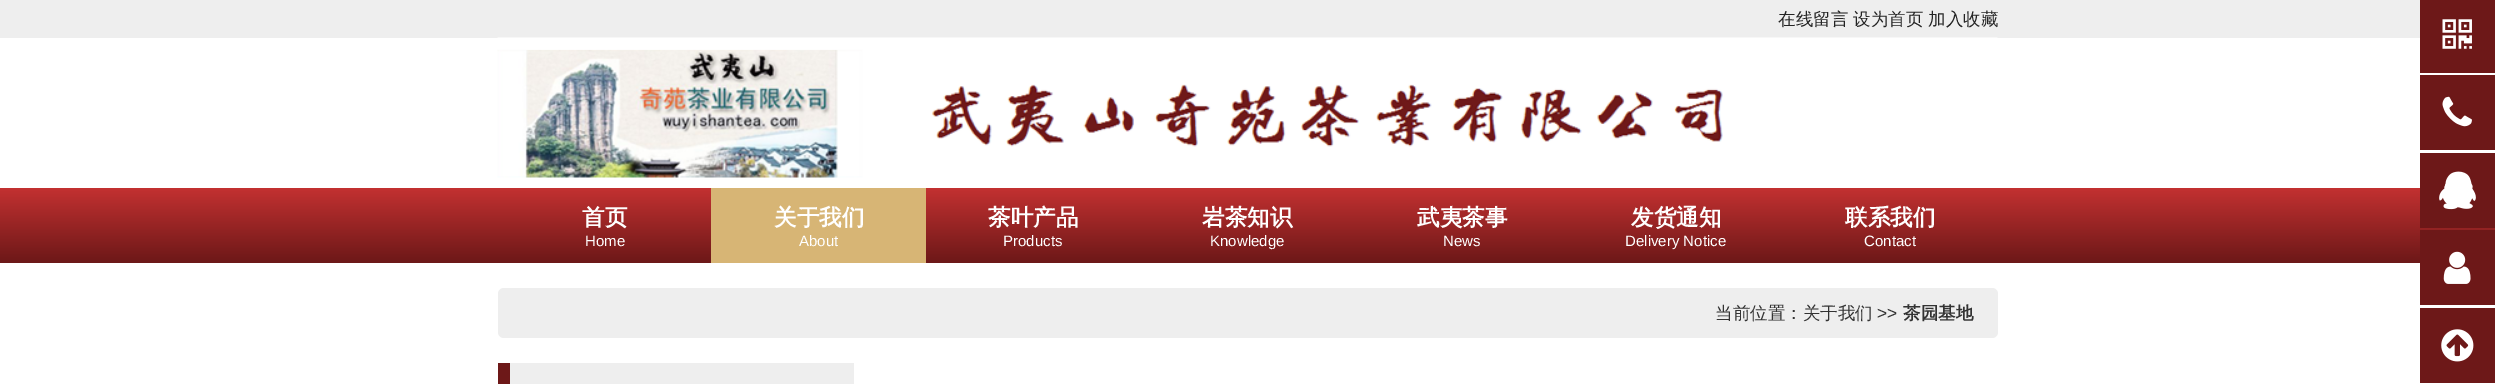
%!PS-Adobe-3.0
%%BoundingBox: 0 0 2495 384
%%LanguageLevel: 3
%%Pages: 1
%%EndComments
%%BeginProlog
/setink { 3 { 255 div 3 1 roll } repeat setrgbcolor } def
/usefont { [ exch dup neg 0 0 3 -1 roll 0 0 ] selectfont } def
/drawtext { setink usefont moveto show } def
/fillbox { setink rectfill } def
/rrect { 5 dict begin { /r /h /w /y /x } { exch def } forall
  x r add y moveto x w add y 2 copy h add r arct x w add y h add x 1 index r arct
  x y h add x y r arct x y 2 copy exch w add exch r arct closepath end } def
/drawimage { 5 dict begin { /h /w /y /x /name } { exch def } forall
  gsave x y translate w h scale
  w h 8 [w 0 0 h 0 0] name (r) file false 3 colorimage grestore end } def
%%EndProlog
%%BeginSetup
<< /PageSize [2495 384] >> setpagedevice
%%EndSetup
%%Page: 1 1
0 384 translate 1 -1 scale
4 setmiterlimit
0 0 2495 384 255 255 255 fillbox
0 0 2420 38 238 238 238 fillbox
(在线留言) 1778 25 /WenQuanYiZenHei-Medium 17.5 36 36 36 drawtext
(设为首页) 1853 25 /WenQuanYiZenHei-Medium 17.5 36 36 36 drawtext
(加入收藏) 1928 25 /WenQuanYiZenHei-Medium 17.5 36 36 36 drawtext
2420 0 75 73 109 24 24 fillbox
(assets/img1.rgb) 2442 19 30 30 drawimage
2420 75 75 75 109 24 24 fillbox
(assets/img2.rgb) 2442 96 30 31 drawimage
gsave 0 188 moveto 2495 188 lineto 2495 263 lineto 0 263 lineto closepath clip newpath
<< /ShadingType 2 /ColorSpace /DeviceRGB /Coords [1248 187 1248 263] /Extend [true true] /Function << /FunctionType 2 /Domain [0 1] /C0 [0.769 0.192 0.192] /C1 [0.424 0.094 0.094] /N 1 >> >> shfill grestore
2420 153 75 75 109 24 24 fillbox
(assets/img3.rgb) 2439 171 37 39 drawimage
2420 230 75 75 109 24 24 fillbox
(assets/img4.rgb) 2443 251 28 33 drawimage
2420 308 75 75 109 24 24 fillbox
(assets/img5.rgb) 2441 329 33 33 drawimage
(assets/img6.rgb) 497 37 1501 141 drawimage
(首页) 582 225 /WenQuanYiZenHei-Bold 22.5 255 255 255 drawtext
(Home) 585 246 /LiberationSans-Regular 15 255 255 255 drawtext
711 188 215 75 215 181 117 fillbox
(关于我们) 774 225 /WenQuanYiZenHei-Bold 22.5 255 255 255 drawtext
(About) 799 246 /LiberationSans-Regular 15 255 255 255 drawtext
(茶叶产品) 988 225 /WenQuanYiZenHei-Bold 22.5 255 255 255 drawtext
(Products) 1003 246 /LiberationSans-Regular 15 255 255 255 drawtext
(岩茶知识) 1202 225 /WenQuanYiZenHei-Bold 22.5 255 255 255 drawtext
(Knowledge) 1210 246 /LiberationSans-Regular 15 255 255 255 drawtext
(武夷茶事) 1417 225 /WenQuanYiZenHei-Bold 22.5 255 255 255 drawtext
(News) 1443 246 /LiberationSans-Regular 15 255 255 255 drawtext
(发货通知) 1631 225 /WenQuanYiZenHei-Bold 22.5 255 255 255 drawtext
(Delivery Notice) 1625 246 /LiberationSans-Regular 15 255 255 255 drawtext
(联系我们) 1845 225 /WenQuanYiZenHei-Bold 22.5 255 255 255 drawtext
(Contact) 1864 246 /LiberationSans-Regular 15 255 255 255 drawtext
238 238 238 setink
498 288 1500 50 6 rrect fill
(当前位置：关于我们) 1715 319 /WenQuanYiZenHei-Medium 17.5 51 51 51 drawtext
(>>) 1877 319 /LiberationSans-Regular 17.5 51 51 51 drawtext
(茶园基地) 1903 319 /WenQuanYiZenHei-Bold 17.5 51 51 51 drawtext
510 363 344 21 238 238 238 fillbox
498 363 12 21 109 24 24 fillbox
showpage
%%EOF
